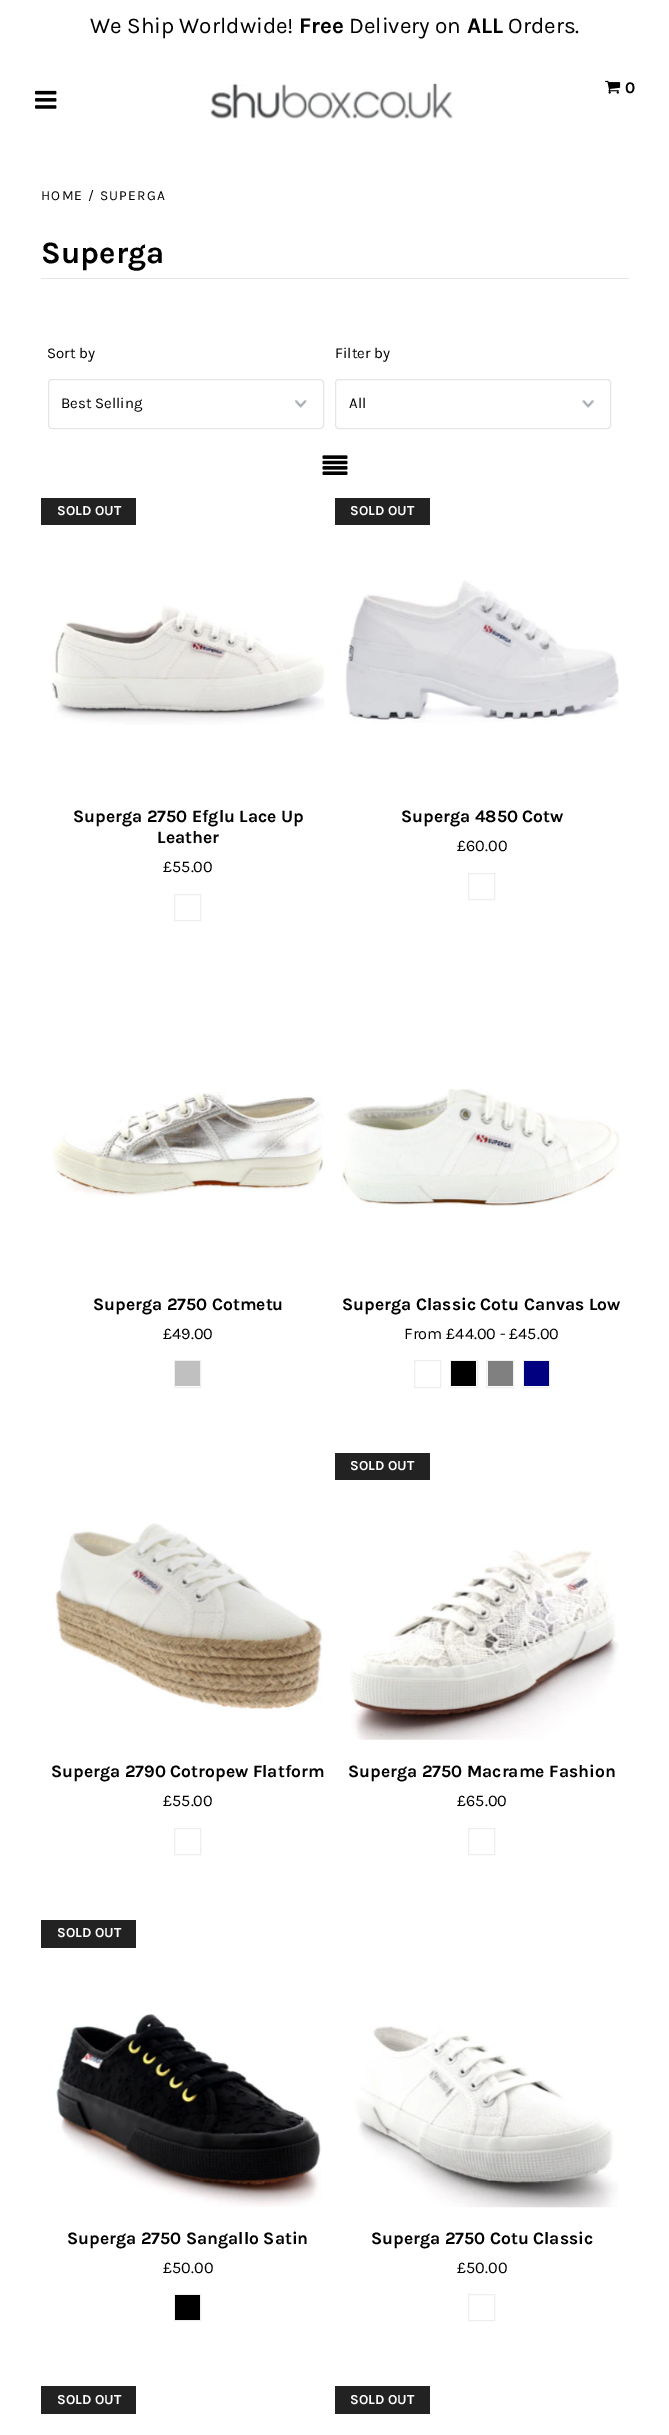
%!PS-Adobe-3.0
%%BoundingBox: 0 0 669 2435
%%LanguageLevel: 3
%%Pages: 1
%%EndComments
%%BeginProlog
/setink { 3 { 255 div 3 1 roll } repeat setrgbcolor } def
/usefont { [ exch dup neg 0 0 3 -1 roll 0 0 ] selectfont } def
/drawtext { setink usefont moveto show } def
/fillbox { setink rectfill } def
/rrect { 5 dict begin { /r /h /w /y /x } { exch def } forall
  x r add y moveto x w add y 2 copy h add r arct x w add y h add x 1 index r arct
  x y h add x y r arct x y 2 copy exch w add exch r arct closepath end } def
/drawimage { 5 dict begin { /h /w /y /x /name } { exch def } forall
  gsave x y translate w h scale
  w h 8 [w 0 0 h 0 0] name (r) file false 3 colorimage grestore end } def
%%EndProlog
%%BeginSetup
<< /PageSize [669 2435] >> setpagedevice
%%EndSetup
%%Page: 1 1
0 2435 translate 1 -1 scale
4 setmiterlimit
0 0 669 2435 255 255 255 fillbox
(We Ship Worldwide!) 90 33 /Karla-Regular 22.5 0 0 0 drawtext
(Free) 299 33 /Karla-Bold 22.5 0 0 0 drawtext
(Delivery on) 349 33 /Karla-Regular 22.5 0 0 0 drawtext
(ALL) 467 33 /Karla-Bold 22.5 0 0 0 drawtext
(Orders.) 508 33 /Karla-Regular 22.5 0 0 0 drawtext
(assets/img1.rgb) 35 90 22 19 drawimage
(assets/img2.rgb) 210 83 243 36 drawimage
(assets/img3.rgb) 605 80 16 14 drawimage
(0) 625 93 /Karla-Bold 16.25 0 0 0 drawtext
/Karla-Regular 13.75 usefont
41 200 moveto 1.25 0 (HOME / SUPERGA) ashow
41 278 588 1 229 229 229 fillbox
(Superga) 41 263 /Karla-Bold 31 0 0 0 drawtext
(Sort by) 47 358 /Karla-Regular 15 0 0 0 drawtext
(assets/img4.rgb) 294 400 13 8 drawimage
229 229 229 setink
48.5 379.5 275 49 3.5 rrect stroke
(Best Selling) 61 408 /Karla-Regular 15 0 0 0 drawtext
(Filter by) 335 358 /Karla-Regular 15 0 0 0 drawtext
(assets/img5.rgb) 582 400 12 8 drawimage
229 229 229 setink
335.5 379.5 275 49 3.5 rrect stroke
(All) 349 408 /Karla-Regular 15 0 0 0 drawtext
(assets/img6.rgb) 322 455 26 20 drawimage
41 498 95 27 34 34 34 fillbox
(SOLD OUT) 57 515 /Karla-Bold 13.75 255 255 255 drawtext
(assets/img7.rgb) 51 606 274 119 drawimage
(Superga 2750 Efglu Lace Up) 73 822 /Karla-Bold 17.5 0 0 0 drawtext
(Leather) 157 843 /Karla-Bold 17.5 0 0 0 drawtext
(£55.00) 163 872 /Karla-Regular 16.25 0 0 0 drawtext
238 238 238 setink
174.5 894.5 26 26 rectstroke
335 498 95 27 34 34 34 fillbox
(SOLD OUT) 350 515 /Karla-Bold 13.75 255 255 255 drawtext
(assets/img8.rgb) 345 580 274 143 drawimage
(Superga 4850 Cotw) 401 822 /Karla-Bold 17.5 0 0 0 drawtext
(£60.00) 457 851 /Karla-Regular 16.25 0 0 0 drawtext
238 238 238 setink
468.5 873.5 26 26 rectstroke
(assets/img9.rgb) 52 1092 272 105 drawimage
(Superga 2750 Cotmetu) 93 1310 /Karla-Bold 17.5 0 0 0 drawtext
(£49.00) 163 1339 /Karla-Regular 16.25 0 0 0 drawtext
238 238 238 setink
174.5 1360.5 26 27 rectstroke
175 1361 25 25 192 192 192 fillbox
(assets/img10.rgb) 342 1088 278 119 drawimage
(Superga Classic Cotu Canvas Low) 342 1310 /Karla-Bold 17.5 0 0 0 drawtext
(From £44.00 - £45.00) 404 1339 /Karla-Regular 16.25 0 0 0 drawtext
238 238 238 setink
414.5 1360.5 26 27 rectstroke
450.5 1360.5 27 27 rectstroke
451 1361 25 25 0 0 0 fillbox
238 238 238 setink
486.5 1360.5 27 27 rectstroke
488 1361 25 25 128 128 128 fillbox
238 238 238 setink
523.5 1360.5 26 27 rectstroke
524 1361 25 25 0 0 128 fillbox
(assets/img11.rgb) 55 1523 268 187 drawimage
(Superga 2790 Cotropew Flatform) 51 1777 /Karla-Bold 17.5 0 0 0 drawtext
(£55.00) 163 1806 /Karla-Regular 16.25 0 0 0 drawtext
238 238 238 setink
174.5 1828.5 26 26 rectstroke
335 1453 95 27 34 34 34 fillbox
(SOLD OUT) 350 1470 /Karla-Bold 13.75 255 255 255 drawtext
(assets/img12.rgb) 350 1550 269 190 drawimage
(Superga 2750 Macrame Fashion) 348 1777 /Karla-Bold 17.5 0 0 0 drawtext
(£65.00) 457 1806 /Karla-Regular 16.25 0 0 0 drawtext
238 238 238 setink
468.5 1828.5 26 26 rectstroke
41 1920 95 28 34 34 34 fillbox
(SOLD OUT) 57 1937 /Karla-Bold 13.75 255 255 255 drawtext
(assets/img13.rgb) 56 2014 266 193 drawimage
(Superga 2750 Sangallo Satin) 67 2244 /Karla-Bold 17.5 0 0 0 drawtext
(£50.00) 163 2273 /Karla-Regular 16.25 0 0 0 drawtext
238 238 238 setink
174.5 2294.5 26 26 rectstroke
175 2295 25 25 0 0 0 fillbox
(assets/img14.rgb) 354 2026 265 182 drawimage
(Superga 2750 Cotu Classic) 371 2244 /Karla-Bold 17.5 0 0 0 drawtext
(£50.00) 457 2273 /Karla-Regular 16.25 0 0 0 drawtext
238 238 238 setink
468.5 2294.5 26 26 rectstroke
41 2386 95 28 34 34 34 fillbox
(SOLD OUT) 57 2404 /Karla-Bold 13.75 255 255 255 drawtext
335 2386 95 28 34 34 34 fillbox
(SOLD OUT) 350 2404 /Karla-Bold 13.75 255 255 255 drawtext
showpage
%%EOF
